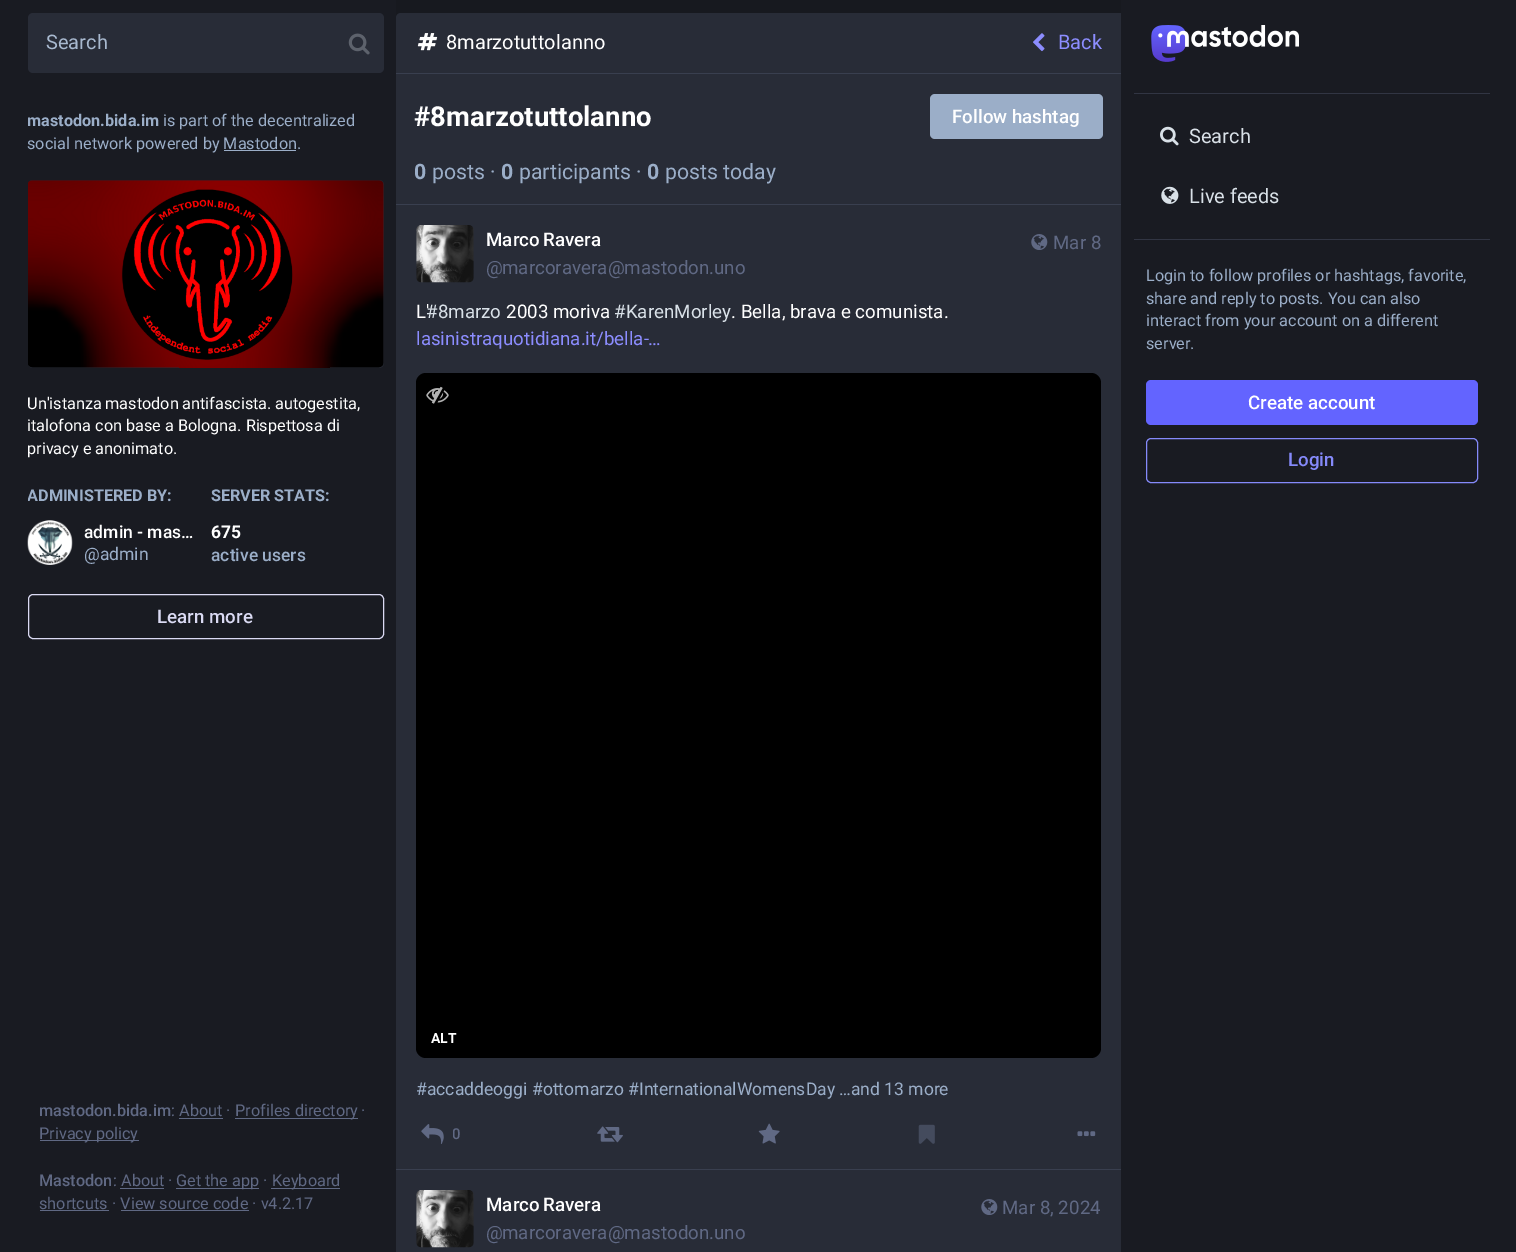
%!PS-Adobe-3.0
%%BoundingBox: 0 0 1516 1252
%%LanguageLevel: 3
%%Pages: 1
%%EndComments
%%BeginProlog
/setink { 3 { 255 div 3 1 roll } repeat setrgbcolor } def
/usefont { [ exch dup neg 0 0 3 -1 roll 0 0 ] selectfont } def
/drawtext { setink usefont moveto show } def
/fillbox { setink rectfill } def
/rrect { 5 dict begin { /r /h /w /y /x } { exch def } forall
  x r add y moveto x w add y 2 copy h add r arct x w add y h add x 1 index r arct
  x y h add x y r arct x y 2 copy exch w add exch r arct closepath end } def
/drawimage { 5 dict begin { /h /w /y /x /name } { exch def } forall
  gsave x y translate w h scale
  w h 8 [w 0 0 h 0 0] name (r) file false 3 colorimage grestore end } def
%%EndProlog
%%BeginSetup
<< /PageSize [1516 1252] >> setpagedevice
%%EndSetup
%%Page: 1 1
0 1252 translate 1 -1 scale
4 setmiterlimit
0 0 1516 1252 25 27 34 fillbox
40 44 55 setink
28 13 356 60 5 rrect fill
(Search) 46 49 /Roboto-Regular 20 168 185 207 drawtext
(assets/img1.rgb) 348 33 22 22 drawimage
gsave
28 13 356 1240 rectclip
(mastodon.bida.im) 27 126 /Roboto-Bold 16.25 155 174 200 drawtext
grestore
(is part of the decentralized) 163 126 /Roboto-Regular 16.25 155 174 200 drawtext
(social network powered by Mastodon.) 27 149 /Roboto-Regular 16.25 155 174 200 drawtext
224 150 72 1 155 174 200 fillbox
40 44 55 setink
28 180 356 188 5 rrect fill
(assets/img2.rgb) 28 180 356 188 drawimage
255 255 255 setink
27 409 moveto -0.5 0 32 (Un'istanza mastodon antifascista. autogestita,) widthshow
(italofona con base a Bologna. Rispettosa di) 27 431 /Roboto-Regular 16.25 255 255 255 drawtext
(privacy e anonimato.) 27 454 /Roboto-Regular 16.25 255 255 255 drawtext
gsave
28 485 171 83 rectclip
(ADMINISTERED BY:) 27 501 /Roboto-Bold 16.25 155 174 200 drawtext
grestore
(assets/img3.rgb) 27 520 46 45 drawimage
(admin - mas…) 84 538 /Roboto-Medium 17.5 255 255 255 drawtext
(@admin) 84 560 /Roboto-Regular 17.5 155 174 200 drawtext
/Roboto-Bold 16.25 usefont
211 501 moveto -1 0 32 (SERVER STATS:) widthshow
(675) 211 538 /Roboto-Bold 17.5 255 255 255 drawtext
(active users) 211 561 /Roboto-Medium 17.5 155 174 200 drawtext
218 218 243 setink
28.5 594.5 355 44 4.5 rrect stroke
(Learn more) 157 623 /Roboto-Medium 18.75 218 218 243 drawtext
(mastodon.bida.im) 39 1116 /Roboto-Medium 16.25 96 105 132 drawtext
(: About ·) 171 1116 /Roboto-Regular 16.25 96 105 132 drawtext
235 1118 123 1 96 105 132 fillbox
(Profiles directory) 235 1116 /Roboto-Regular 16.25 96 105 132 drawtext
(·) 361 1116 /Roboto-Regular 16.25 96 105 132 drawtext
179 1118 44 1 96 105 132 fillbox
40 1140 99 1 96 105 132 fillbox
(Privacy policy) 39 1139 /Roboto-Regular 16.25 96 105 132 drawtext
(Mastodon) 39 1186 /Roboto-Medium 16.25 96 105 132 drawtext
(: About ·) 113 1186 /Roboto-Regular 16.25 96 105 132 drawtext
176 1188 83 1 96 105 132 fillbox
(Get the app ·) 176 1186 /Roboto-Regular 16.25 96 105 132 drawtext
271 1188 69 1 96 105 132 fillbox
(Keyboard) 272 1186 /Roboto-Regular 16.25 96 105 132 drawtext
120 1188 44 1 96 105 132 fillbox
(shortcuts) 39 1209 /Roboto-Regular 16.25 96 105 132 drawtext
40 1210 69 1 96 105 132 fillbox
(· View source code · v4.2.17) 112 1209 /Roboto-Regular 16.25 96 105 132 drawtext
121 1210 128 1 96 105 132 fillbox
396 0 725 18 23 25 31 fillbox
40 44 55 setink
401 13 moveto 1116 13 lineto 1119 13 1121 15 1121 18 curveto 1121 74 lineto 396 74 lineto 396 18 lineto 396 15 398 13 401 13 curveto closepath fill
396 73 725 1 57 63 79 fillbox
(assets/img4.rgb) 417 33 21 18 drawimage
(8marzotuttolanno) 446 49 /Roboto-Regular 20 255 255 255 drawtext
1117 13 4 4 40 44 55 fillbox
(assets/img5.rgb) 1033 33 12 19 drawimage
(Back) 1058 49 /Roboto-Regular 20 140 141 255 drawtext
396 74 725 1178 40 44 55 fillbox
396 204 725 1 57 63 79 fillbox
(#8marzotuttolanno) 414 126 /Roboto-Bold 27.5 255 255 255 drawtext
155 174 200 setink
930 94 173 45 5 rrect fill
(Follow hashtag) 952 123 /Roboto-Medium 18.75 255 255 255 drawtext
(0) 414 179 /Roboto-Bold 21.25 155 174 200 drawtext
(posts ·) 432 179 /Roboto-Regular 21.25 155 174 200 drawtext
(0) 501 179 /Roboto-Bold 21.25 155 174 200 drawtext
(participants ·) 519 179 /Roboto-Regular 21.25 155 174 200 drawtext
(0) 647 179 /Roboto-Bold 21.25 155 174 200 drawtext
(posts today) 665 179 /Roboto-Regular 21.25 155 174 200 drawtext
396 1169 725 1 57 63 79 fillbox
(assets/img6.rgb) 416 225 58 58 drawimage
/Roboto-Medium 18.75 usefont
255 255 255 setink
486 246 moveto -1 0 32 (Marco Ravera) widthshow
(@) 486 274 /Roboto-Regular 18.75 96 105 132 drawtext
gsave
486 254 259 27 rectclip
(marcoravera@mastodon.uno) 502 274 /Roboto-Regular 18.75 96 105 132 drawtext
grestore
(assets/img7.rgb) 1031 234 17 16 drawimage
(Mar 8) 1053 249 /Roboto-Regular 18.75 96 105 132 drawtext
(L') 416 318 /Roboto-Regular 18.75 255 255 255 drawtext
(#8marzo) 426 318 /Roboto-Regular 18.75 217 225 232 drawtext
(2003 moriva) 506 318 /Roboto-Regular 18.75 255 255 255 drawtext
(#KarenMorley) 614 318 /Roboto-Regular 18.75 217 225 232 drawtext
(. Bella, brava e comunista.) 731 318 /Roboto-Regular 18.75 255 255 255 drawtext
(lasinistraquotidiana.it/bella-) 416 345 /Roboto-Regular 18.75 140 141 255 drawtext
(…) 648 345 /Roboto-Regular 18.75 140 141 255 drawtext
0 0 0 setink
416 373 685 685 10 rrect fill
(assets/img8.rgb) 426 386 23 18 drawimage
(ALT) 431 1043 /Roboto-Bold 14 255 255 255 drawtext
(#accaddeoggi) 416 1095 /Roboto-Regular 17.5 155 174 200 drawtext
(#ottomarzo) 532 1095 /Roboto-Regular 17.5 155 174 200 drawtext
(#InternationalWomensDay …and 13 more) 628 1095 /Roboto-Regular 17.5 155 174 200 drawtext
(assets/img9.rgb) 421 1124 23 20 drawimage
gsave
453 1124 7 22 rectclip
(0) 452 1139 /Roboto-Medium 15 96 105 132 drawtext
grestore
(assets/img10.rgb) 597 1126 26 17 drawimage
(assets/img11.rgb) 758 1123 22 21 drawimage
(assets/img12.rgb) 918 1124 17 20 drawimage
(assets/img13.rgb) 1077 1131 19 6 drawimage
(assets/img6.rgb) 416 1190 58 58 drawimage
/Roboto-Medium 18.75 usefont
255 255 255 setink
486 1211 moveto -1 0 32 (Marco Ravera) widthshow
(@) 486 1239 /Roboto-Regular 18.75 96 105 132 drawtext
gsave
486 1219 259 27 rectclip
(marcoravera@mastodon.uno) 502 1239 /Roboto-Regular 18.75 96 105 132 drawtext
grestore
(assets/img7.rgb) 981 1199 17 16 drawimage
(Mar 8, 2024) 1002 1214 /Roboto-Regular 18.75 96 105 132 drawtext
(assets/img14.rgb) 1151 25 148 37 drawimage
1134 93 356 1 49 53 67 fillbox
(assets/img15.rgb) 1160 126 19 20 drawimage
(Search) 1189 143 /Roboto-Regular 20 217 225 232 drawtext
(assets/img16.rgb) 1161 186 18 18 drawimage
(Live feeds) 1189 203 /Roboto-Regular 20 217 225 232 drawtext
1134 239 356 1 49 53 67 fillbox
(Login to follow profiles or hashtags, favorite,) 1146 281 /Roboto-Regular 16.25 155 174 200 drawtext
(share and reply to posts. You can also) 1146 304 /Roboto-Regular 16.25 155 174 200 drawtext
(interact from your account on a different) 1146 326 /Roboto-Regular 16.25 155 174 200 drawtext
(server.) 1146 349 /Roboto-Regular 16.25 155 174 200 drawtext
99 100 255 setink
1146 380 332 45 5 rrect fill
(Create account) 1248 409 /Roboto-Medium 18.75 255 255 255 drawtext
133 138 250 setink
1146.5 438.5 331 44 4.5 rrect stroke
(Login) 1288 466 /Roboto-Medium 18.75 133 138 250 drawtext
showpage
%%EOF
